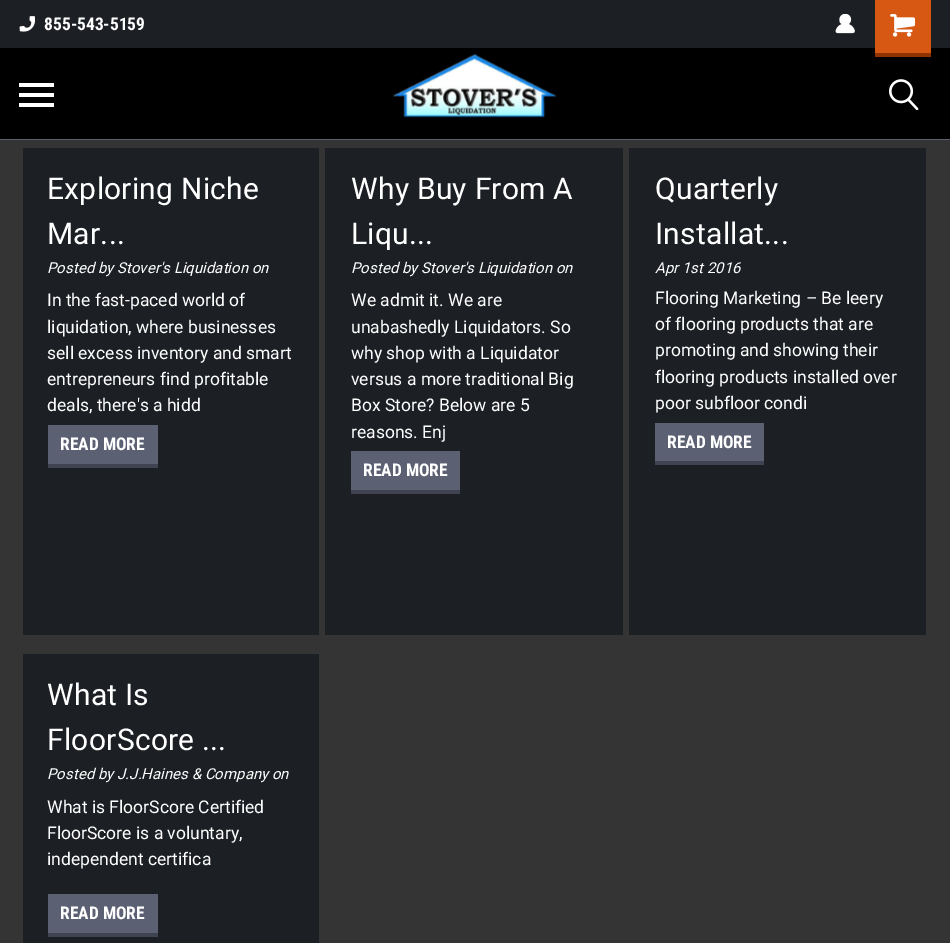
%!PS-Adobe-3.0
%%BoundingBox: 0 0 950 943
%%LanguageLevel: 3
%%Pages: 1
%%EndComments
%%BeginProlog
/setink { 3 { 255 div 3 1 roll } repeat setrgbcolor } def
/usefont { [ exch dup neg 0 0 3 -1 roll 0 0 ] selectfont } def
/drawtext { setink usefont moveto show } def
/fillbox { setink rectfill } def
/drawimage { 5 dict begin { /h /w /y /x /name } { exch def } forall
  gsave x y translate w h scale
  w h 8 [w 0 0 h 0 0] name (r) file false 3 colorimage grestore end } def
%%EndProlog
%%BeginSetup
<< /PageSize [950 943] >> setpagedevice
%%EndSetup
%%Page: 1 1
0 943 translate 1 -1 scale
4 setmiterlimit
0 0 950 943 52 52 52 fillbox
0 139 950 1 91 96 115 fillbox
0 0 950 48 28 31 36 fillbox
(assets/img1.rgb) 19 16 16 16 drawimage
(855-543-5159) 44 30 /RobotoCondensed-Bold 17.5 255 255 255 drawtext
(assets/img2.rgb) 835 14 20 20 drawimage
0 48 950 91 0 0 0 fillbox
875 0 56 53 215 88 19 fillbox
875 53 56 4 143 50 0 fillbox
(assets/img3.rgb) 890 14 25 23 drawimage
19 93 35 4 255 255 255 fillbox
19 83 35 4 255 255 255 fillbox
19 103 35 4 255 255 255 fillbox
(assets/img4.rgb) 393 54 164 64 drawimage
(assets/img5.rgb) 889 79 30 31 drawimage
23 148 296 487 28 31 36 fillbox
/Roboto-Regular 30 usefont
255 255 255 setink
47 199 moveto 0.25 0 (Exploring Niche) ashow
47 244 moveto 0.25 0 (Mar...) ashow
(Posted by Stover's Liquidation on) 47 273 /Roboto-Italic 15 255 255 255 drawtext
(In the fast-paced world of) 47 306 /Roboto-Regular 17.5 255 255 255 drawtext
(liquidation, where businesses) 47 333 /Roboto-Regular 17.5 255 255 255 drawtext
(sell excess inventory and smart) 47 359 /Roboto-Regular 17.5 255 255 255 drawtext
(entrepreneurs find profitable) 47 385 /Roboto-Regular 17.5 255 255 255 drawtext
(deals, there's a hidd) 47 411 /Roboto-Regular 17.5 255 255 255 drawtext
48 425 110 39 91 96 115 fillbox
48 464 110 4 64 68 82 fillbox
(READ MORE) 60 450 /RobotoCondensed-Bold 17.5 255 255 255 drawtext
325 148 298 487 28 31 36 fillbox
/Roboto-Regular 30 usefont
255 255 255 setink
351 199 moveto 0.25 0 (Why Buy From A) ashow
351 244 moveto 0.25 0 (Liqu...) ashow
(Posted by Stover's Liquidation on) 351 273 /Roboto-Italic 15 255 255 255 drawtext
(We admit it. We are) 351 306 /Roboto-Regular 17.5 255 255 255 drawtext
(unabashedly Liquidators. So) 351 333 /Roboto-Regular 17.5 255 255 255 drawtext
(why shop with a Liquidator) 351 359 /Roboto-Regular 17.5 255 255 255 drawtext
(versus a more traditional Big) 351 385 /Roboto-Regular 17.5 255 255 255 drawtext
(Box Store? Below are 5) 351 411 /Roboto-Regular 17.5 255 255 255 drawtext
(reasons. Enj) 351 438 /Roboto-Regular 17.5 255 255 255 drawtext
351 451 109 39 91 96 115 fillbox
351 490 109 4 64 68 82 fillbox
(READ MORE) 363 476 /RobotoCondensed-Bold 17.5 255 255 255 drawtext
629 148 297 487 28 31 36 fillbox
/Roboto-Regular 30 usefont
255 255 255 setink
655 199 moveto 0.25 0 (Quarterly) ashow
655 244 moveto 0.25 0 (Installat...) ashow
(Apr 1st 2016) 655 273 /Roboto-Italic 15 255 255 255 drawtext
(Flooring Marketing – Be leery) 655 304 /Roboto-Regular 17.5 255 255 255 drawtext
(of flooring products that are) 655 330 /Roboto-Regular 17.5 255 255 255 drawtext
(promoting and showing their) 655 356 /Roboto-Regular 17.5 255 255 255 drawtext
(flooring products installed over) 655 383 /Roboto-Regular 17.5 255 255 255 drawtext
(poor subfloor condi) 655 409 /Roboto-Regular 17.5 255 255 255 drawtext
655 423 109 38 91 96 115 fillbox
655 461 109 4 64 68 82 fillbox
(READ MORE) 667 448 /RobotoCondensed-Bold 17.5 255 255 255 drawtext
23 654 296 289 28 31 36 fillbox
/Roboto-Regular 30 usefont
255 255 255 setink
47 705 moveto 0.25 0 (What Is) ashow
47 750 moveto 0.25 0 (FloorScore ...) ashow
(Posted by J.J.Haines & Company on) 47 779 /Roboto-Italic 15 255 255 255 drawtext
(What is FloorScore Certified) 47 813 /Roboto-Regular 17.5 255 255 255 drawtext
(FloorScore is a voluntary,) 47 839 /Roboto-Regular 17.5 255 255 255 drawtext
(independent certifica) 47 865 /Roboto-Regular 17.5 255 255 255 drawtext
48 894 110 39 91 96 115 fillbox
48 933 110 4 64 68 82 fillbox
(READ MORE) 60 919 /RobotoCondensed-Bold 17.5 255 255 255 drawtext
showpage
%%EOF
